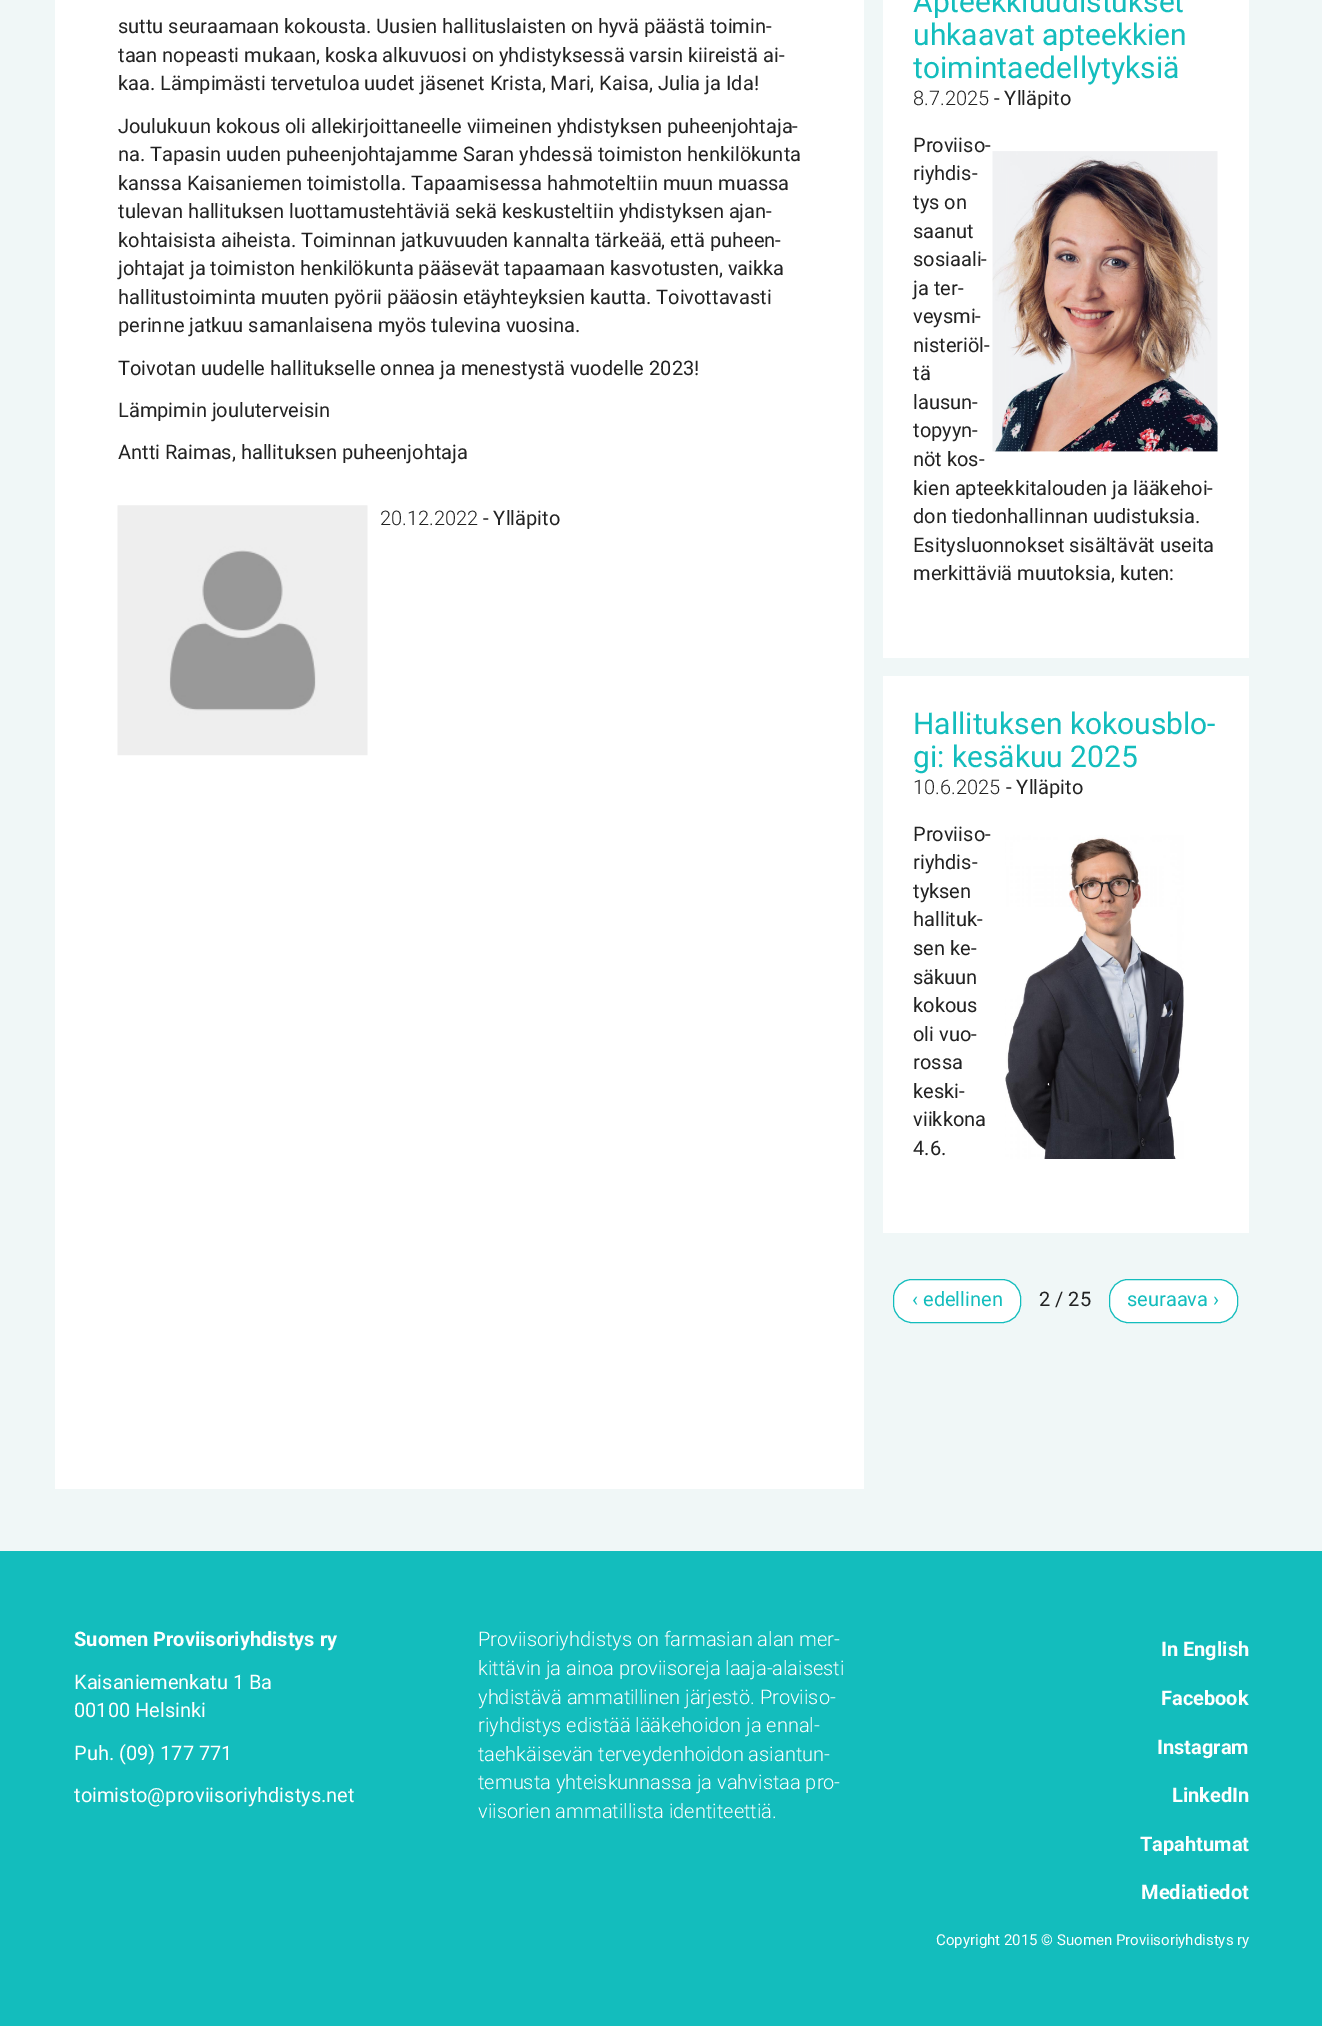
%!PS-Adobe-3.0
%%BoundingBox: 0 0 1322 2026
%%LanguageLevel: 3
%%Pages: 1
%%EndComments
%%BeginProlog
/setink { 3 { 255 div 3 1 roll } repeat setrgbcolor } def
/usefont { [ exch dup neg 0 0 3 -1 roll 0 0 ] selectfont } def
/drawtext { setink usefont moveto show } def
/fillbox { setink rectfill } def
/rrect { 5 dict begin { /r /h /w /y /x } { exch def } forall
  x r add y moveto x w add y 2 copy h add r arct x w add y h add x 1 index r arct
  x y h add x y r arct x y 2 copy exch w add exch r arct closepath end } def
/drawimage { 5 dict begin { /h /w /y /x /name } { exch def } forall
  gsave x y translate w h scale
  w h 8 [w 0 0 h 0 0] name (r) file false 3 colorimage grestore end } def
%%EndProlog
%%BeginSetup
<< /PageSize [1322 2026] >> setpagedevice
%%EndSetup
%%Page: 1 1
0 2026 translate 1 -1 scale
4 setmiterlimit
0 0 1322 2026 240 247 247 fillbox
55 0 809 1489 255 255 255 fillbox
(suttu seuraamaan kokousta. Uusien hallituslaisten on hyvä päästä toimin-) 118 33 /Roboto-Regular 20 34 34 34 drawtext
(taan nopeasti mukaan, koska alkuvuosi on yhdistyksessä varsin kiireistä ai-) 118 62 /Roboto-Regular 20 34 34 34 drawtext
(kaa. Lämpimästi tervetuloa uudet jäsenet Krista, Mari, Kaisa, Julia ja Ida!) 118 90 /Roboto-Regular 20 34 34 34 drawtext
(Joulukuun kokous oli allekirjoittaneelle viimeinen yhdistyksen puheenjohtaja-) 118 133 /Roboto-Regular 20 34 34 34 drawtext
(na. Tapasin uuden puheenjohtajamme Saran yhdessä toimiston henkilökunta) 118 161 /Roboto-Regular 20 34 34 34 drawtext
(kanssa Kaisaniemen toimistolla. Tapaamisessa hahmoteltiin muun muassa) 118 190 /Roboto-Regular 20 34 34 34 drawtext
(tulevan hallituksen luottamustehtäviä sekä keskusteltiin yhdistyksen ajan-) 118 218 /Roboto-Regular 20 34 34 34 drawtext
(kohtaisista aiheista. Toiminnan jatkuvuuden kannalta tärkeää, että puheen-) 118 247 /Roboto-Regular 20 34 34 34 drawtext
(johtajat ja toimiston henkilökunta pääsevät tapaamaan kasvotusten, vaikka) 118 275 /Roboto-Regular 20 34 34 34 drawtext
(hallitustoiminta muuten pyörii pääosin etäyhteyksien kautta. Toivottavasti) 118 304 /Roboto-Regular 20 34 34 34 drawtext
(perinne jatkuu samanlaisena myös tulevina vuosina.) 118 332 /Roboto-Regular 20 34 34 34 drawtext
(Toivotan uudelle hallitukselle onnea ja menestystä vuodelle 2023!) 118 375 /Roboto-Regular 20 34 34 34 drawtext
(Lämpimin jouluterveisin) 118 417 /Roboto-Regular 20 34 34 34 drawtext
(Antti Raimas, hallituksen puheenjohtaja) 118 459 /Roboto-Regular 20 34 34 34 drawtext
(assets/img1.rgb) 117 505 251 251 drawimage
(20.12.2022) 380 525 /Roboto-Light 20 34 34 34 drawtext
(- Ylläpito) 483 525 /Roboto-Regular 20 34 34 34 drawtext
883 0 366 658 255 255 255 fillbox
(Apteekkiuudistukset) 913 12 /Roboto-Regular 30 19 189 189 drawtext
(uhkaavat apteekkien) 913 45 /Roboto-Regular 30 19 189 189 drawtext
(toimintaedellytyksiä) 913 78 /Roboto-Regular 30 19 189 189 drawtext
(8.7.2025) 913 105 /Roboto-Light 20 34 34 34 drawtext
(- Ylläpito) 994 105 /Roboto-Regular 20 34 34 34 drawtext
(Proviiso-) 913 152 /Roboto-Regular 20 34 34 34 drawtext
(riyhdis-) 913 180 /Roboto-Regular 20 34 34 34 drawtext
(assets/img2.rgb) 992 151 226 301 drawimage
(tys on) 913 209 /Roboto-Regular 20 34 34 34 drawtext
(saanut) 913 238 /Roboto-Regular 20 34 34 34 drawtext
(sosiaali-) 913 266 /Roboto-Regular 20 34 34 34 drawtext
(ja ter-) 913 295 /Roboto-Regular 20 34 34 34 drawtext
(veysmi-) 913 323 /Roboto-Regular 20 34 34 34 drawtext
(nisteriöl-) 913 352 /Roboto-Regular 20 34 34 34 drawtext
(tä) 913 380 /Roboto-Regular 20 34 34 34 drawtext
(lausun-) 913 409 /Roboto-Regular 20 34 34 34 drawtext
(topyyn-) 913 437 /Roboto-Regular 20 34 34 34 drawtext
(nöt kos-) 913 466 /Roboto-Regular 20 34 34 34 drawtext
(kien apteekkitalouden ja lääkehoi-) 913 495 /Roboto-Regular 20 34 34 34 drawtext
(don tiedonhallinnan uudistuksia.) 913 523 /Roboto-Regular 20 34 34 34 drawtext
(Esitysluonnokset sisältävät useita) 913 552 /Roboto-Regular 20 34 34 34 drawtext
(merkittäviä muutoksia, kuten:) 913 580 /Roboto-Regular 20 34 34 34 drawtext
883 676 366 557 255 255 255 fillbox
(Hallituksen kokousblo-) 913 734 /Roboto-Regular 30 19 189 189 drawtext
(gi: kesäkuu 2025) 913 767 /Roboto-Regular 30 19 189 189 drawtext
(10.6.2025) 913 794 /Roboto-Light 20 34 34 34 drawtext
(- Ylläpito) 1006 794 /Roboto-Regular 20 34 34 34 drawtext
(Proviiso-) 913 841 /Roboto-Regular 20 34 34 34 drawtext
(assets/img3.rgb) 1005 835 179 324 drawimage
(riyhdis-) 913 869 /Roboto-Regular 20 34 34 34 drawtext
(tyksen) 913 898 /Roboto-Regular 20 34 34 34 drawtext
(hallituk-) 913 926 /Roboto-Regular 20 34 34 34 drawtext
(sen ke-) 913 955 /Roboto-Regular 20 34 34 34 drawtext
(säkuun) 913 984 /Roboto-Regular 20 34 34 34 drawtext
(kokous) 913 1012 /Roboto-Regular 20 34 34 34 drawtext
(oli vuo-) 913 1041 /Roboto-Regular 20 34 34 34 drawtext
(rossa) 913 1069 /Roboto-Regular 20 34 34 34 drawtext
(keski-) 913 1098 /Roboto-Regular 20 34 34 34 drawtext
(viikkona) 913 1126 /Roboto-Regular 20 34 34 34 drawtext
(4.6.) 913 1155 /Roboto-Regular 20 34 34 34 drawtext
255 255 255 setink
893.5 1279.5 127 43 18.5 rrect gsave fill grestore
19 189 189 setink
stroke
(‹ edellinen) 912 1306 /Roboto-Regular 20 19 189 189 drawtext
(2 / 25) 1039 1306 /Roboto-Regular 20 34 34 34 drawtext
255 255 255 setink
1109.5 1279.5 128 43 18.5 rrect gsave fill grestore
19 189 189 setink
stroke
(seuraava ›) 1127 1306 /Roboto-Regular 20 19 189 189 drawtext
0 1551 1322 475 19 189 189 fillbox
(Suomen Proviisoriyhdistys ry) 74 1646 /Roboto-Bold 20 255 255 255 drawtext
(Kaisaniemenkatu 1 Ba) 74 1689 /Roboto-Regular 20 255 255 255 drawtext
(00100 Helsinki) 74 1717 /Roboto-Regular 20 255 255 255 drawtext
(Puh. \(09\) 177 771) 74 1760 /Roboto-Regular 20 255 255 255 drawtext
(toimisto@proviisoriyhdistys.net) 74 1802 /Roboto-Regular 20 255 255 255 drawtext
(Proviisoriyhdistys on farmasian alan mer-) 478 1646 /Roboto-Light 20 255 255 255 drawtext
(kittävin ja ainoa proviisoreja laaja-alaisesti) 478 1675 /Roboto-Light 20 255 255 255 drawtext
(yhdistävä ammatillinen järjestö. Proviiso-) 478 1704 /Roboto-Light 20 255 255 255 drawtext
(riyhdistys edistää lääkehoidon ja ennal-) 478 1732 /Roboto-Light 20 255 255 255 drawtext
(taehkäisevän terveydenhoidon asiantun-) 478 1761 /Roboto-Light 20 255 255 255 drawtext
(temusta yhteiskunnassa ja vahvistaa pro-) 478 1789 /Roboto-Light 20 255 255 255 drawtext
(viisorien ammatillista identiteettiä.) 478 1818 /Roboto-Light 20 255 255 255 drawtext
(In English) 1161 1656 /Roboto-Bold 20 255 255 255 drawtext
(Facebook) 1161 1705 /Roboto-Bold 20 255 255 255 drawtext
(Instagram) 1157 1754 /Roboto-Bold 20 255 255 255 drawtext
(LinkedIn) 1172 1802 /Roboto-Bold 20 255 255 255 drawtext
(Tapahtumat) 1140 1851 /Roboto-Bold 20 255 255 255 drawtext
(Mediatiedot) 1141 1899 /Roboto-Bold 20 255 255 255 drawtext
(Copyright 2015 © Suomen Proviisoriyhdistys ry) 936 1945 /Roboto-Regular 15 255 255 255 drawtext
showpage
%%EOF
